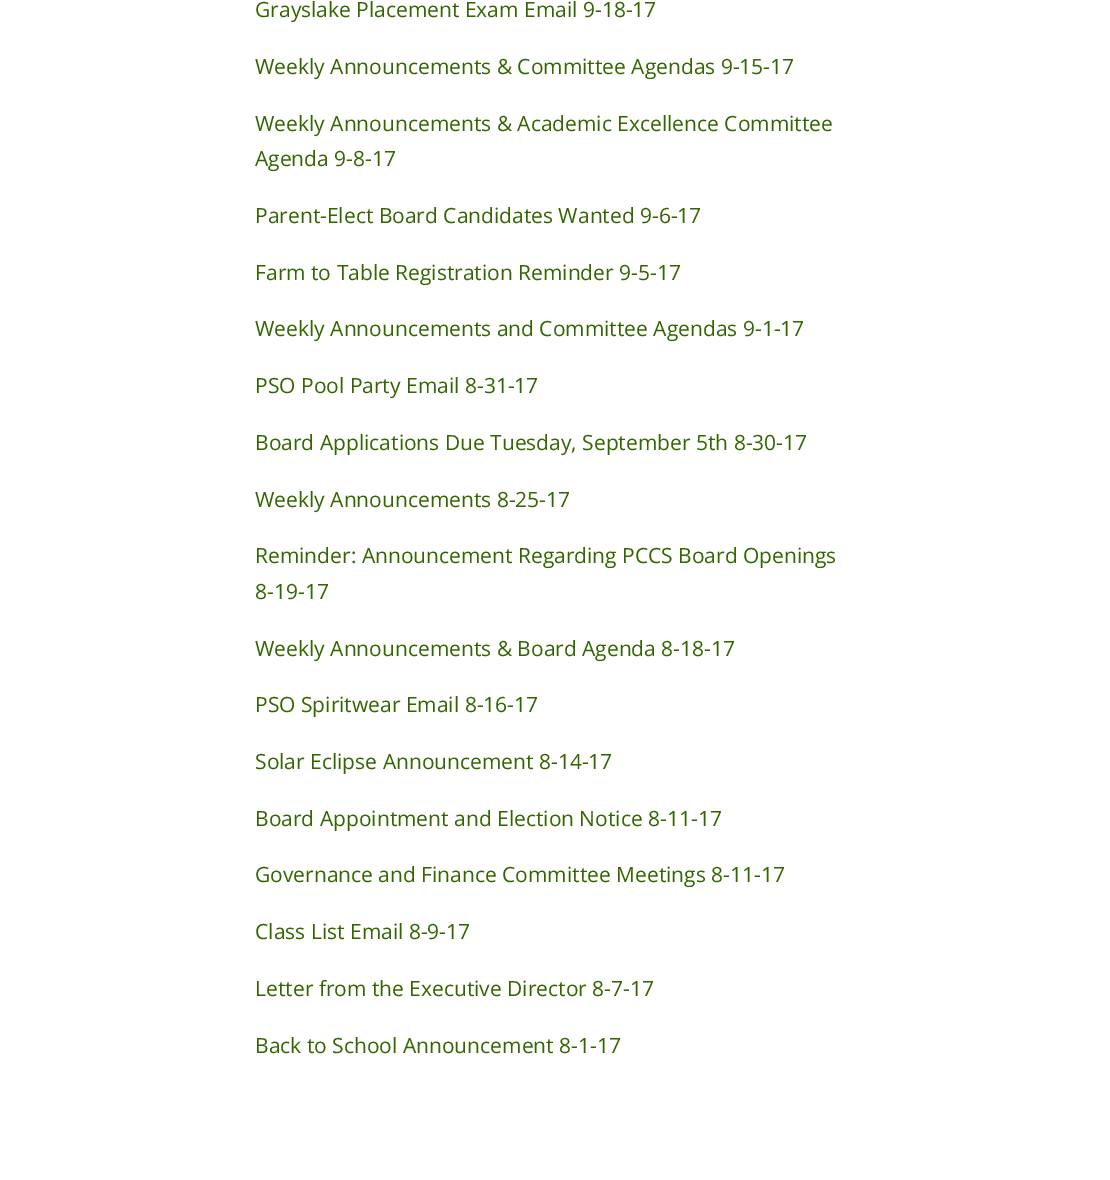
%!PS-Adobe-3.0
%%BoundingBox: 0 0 1110 1180
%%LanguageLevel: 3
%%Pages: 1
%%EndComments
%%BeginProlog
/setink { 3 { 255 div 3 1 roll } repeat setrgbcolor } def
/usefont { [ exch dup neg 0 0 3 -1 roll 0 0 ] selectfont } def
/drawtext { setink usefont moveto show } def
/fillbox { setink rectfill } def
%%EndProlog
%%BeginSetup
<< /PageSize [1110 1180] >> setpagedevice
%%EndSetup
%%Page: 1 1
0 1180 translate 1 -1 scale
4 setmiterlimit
0 0 1110 1180 255 255 255 fillbox
(Grayslake Placement Exam Email 9-18-17) 255 17 /OpenSans-Regular 21 51 102 0 drawtext
(Weekly Announcements & Committee Agendas 9-15-17) 255 74 /OpenSans-Regular 21 51 102 0 drawtext
(Weekly Announcements & Academic Excellence Committee) 255 131 /OpenSans-Regular 21 51 102 0 drawtext
(Agenda 9-8-17) 255 166 /OpenSans-Regular 21 51 102 0 drawtext
(Parent-Elect Board Candidates Wanted 9-6-17) 255 223 /OpenSans-Regular 21 51 102 0 drawtext
(Farm to Table Registration Reminder 9-5-17) 255 280 /OpenSans-Regular 21 51 102 0 drawtext
(Weekly Announcements and Committee Agendas 9-1-17) 255 336 /OpenSans-Regular 21 51 102 0 drawtext
(PSO Pool Party Email 8-31-17) 255 393 /OpenSans-Regular 21 51 102 0 drawtext
(Board Applications Due Tuesday, September 5th 8-30-17) 255 450 /OpenSans-Regular 21 51 102 0 drawtext
(Weekly Announcements 8-25-17) 255 507 /OpenSans-Regular 21 51 102 0 drawtext
(Reminder: Announcement Regarding PCCS Board Openings) 255 563 /OpenSans-Regular 21 51 102 0 drawtext
(8-19-17) 255 599 /OpenSans-Regular 21 51 102 0 drawtext
(Weekly Announcements & Board Agenda 8-18-17) 255 656 /OpenSans-Regular 21 51 102 0 drawtext
(PSO Spiritwear Email 8-16-17) 255 712 /OpenSans-Regular 21 51 102 0 drawtext
(Solar Eclipse Announcement 8-14-17) 255 769 /OpenSans-Regular 21 51 102 0 drawtext
(Board Appointment and Election Notice 8-11-17) 255 826 /OpenSans-Regular 21 51 102 0 drawtext
(Governance and Finance Committee Meetings 8-11-17) 255 882 /OpenSans-Regular 21 51 102 0 drawtext
(Class List Email 8-9-17) 255 939 /OpenSans-Regular 21 51 102 0 drawtext
(Letter from the Executive Director 8-7-17) 255 996 /OpenSans-Regular 21 51 102 0 drawtext
(Back to School Announcement 8-1-17) 255 1053 /OpenSans-Regular 21 51 102 0 drawtext
showpage
%%EOF
